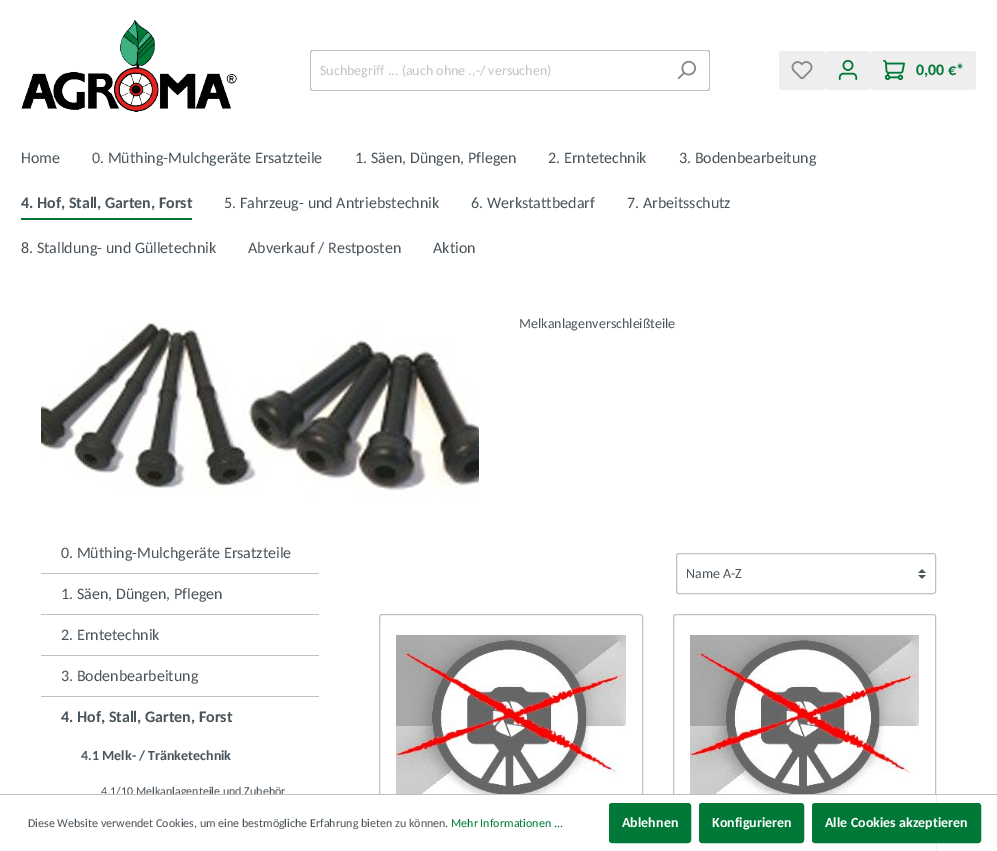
%!PS-Adobe-3.0
%%BoundingBox: 0 0 997 851
%%LanguageLevel: 3
%%Pages: 1
%%EndComments
%%BeginProlog
/setink { 3 { 255 div 3 1 roll } repeat setrgbcolor } def
/usefont { [ exch dup neg 0 0 3 -1 roll 0 0 ] selectfont } def
/drawtext { setink usefont moveto show } def
/fillbox { setink rectfill } def
/rrect { 5 dict begin { /r /h /w /y /x } { exch def } forall
  x r add y moveto x w add y 2 copy h add r arct x w add y h add x 1 index r arct
  x y h add x y r arct x y 2 copy exch w add exch r arct closepath end } def
/drawimage { 5 dict begin { /h /w /y /x /name } { exch def } forall
  gsave x y translate w h scale
  w h 8 [w 0 0 h 0 0] name (r) file false 3 colorimage grestore end } def
%%EndProlog
%%BeginSetup
<< /PageSize [997 851] >> setpagedevice
%%EndSetup
%%Page: 1 1
0 851 translate 1 -1 scale
4 setmiterlimit
0 0 997 851 255 255 255 fillbox
(assets/img1.rgb) 21 19 216 93 drawimage
188 193 199 setink
313 50 moveto 664 50 lineto 664 91 lineto 313 91 lineto 311 91 310 90 310 88 curveto 310 53 lineto 310 51 311 50 313 50 curveto closepath 313 51 moveto 664 51 lineto 664 90 lineto 313 90 lineto 312 90 311 89 311 88 curveto 311 53 lineto 311 52 312 51 313 51 curveto closepath eofill
(Suchbegriff ... \(auch ohne .,-/ versuchen\)) 320 75 /Carlito-Regular 14 195 195 195 drawtext
255 255 255 setink
663 50 moveto 707 50 lineto 708.5 50 710 51.5 710 53 curveto 710 88 lineto 710 89.5 708.5 91 707 91 curveto 663 91 lineto closepath fill
188 193 199 setink
663 50 moveto 707 50 lineto 709 50 710 51 710 53 curveto 710 88 lineto 710 90 709 91 707 91 curveto 663 91 lineto closepath 663 51 moveto 707 51 lineto 708 51 709 52 709 53 curveto 709 88 lineto 709 89 708 90 707 90 curveto 663 90 lineto closepath eofill
(assets/img2.rgb) 677 60 20 20 drawimage
238 238 238 setink
779 51 46 39 3 rrect fill
(assets/img3.rgb) 791 61 22 19 drawimage
825 51 46 39 3 rrect fill
(assets/img4.rgb) 838 59 20 22 drawimage
871 51 105 39 3 rrect fill
(assets/img5.rgb) 883 60 22 21 drawimage
(0,00 €*) 916 75 /Carlito-Bold 16 0 121 56 drawtext
(Home) 21 163 /Carlito-Regular 16 74 84 91 drawtext
(0. Müthing-Mulchgeräte Ersatzteile) 92 163 /Carlito-Regular 16 74 84 91 drawtext
(1. Säen, Düngen, Pflegen) 355 163 /Carlito-Regular 16 74 84 91 drawtext
(2. Erntetechnik) 548 163 /Carlito-Regular 16 74 84 91 drawtext
(3. Bodenbearbeitung) 679 163 /Carlito-Regular 16 74 84 91 drawtext
21 218 171 2 0 121 56 fillbox
(4. Hof, Stall, Garten, Forst) 21 208 /Carlito-Bold 16 74 84 91 drawtext
(5. Fahrzeug- und Antriebstechnik) 224 208 /Carlito-Regular 16 74 84 91 drawtext
(6. Werkstattbedarf) 471 208 /Carlito-Regular 16 74 84 91 drawtext
(7. Arbeitsschutz) 627 208 /Carlito-Regular 16 74 84 91 drawtext
(8. Stalldung- und Gülletechnik) 21 253 /Carlito-Regular 16 74 84 91 drawtext
(Abverkauf / Restposten) 248 253 /Carlito-Regular 16 74 84 91 drawtext
(Aktion) 433 253 /Carlito-Regular 16 74 84 91 drawtext
(assets/img6.rgb) 41 321 438 176 drawimage
(Melkanlagenverschleißteile) 519 328 /Carlito-Regular 14 74 84 91 drawtext
41 573 278 1 188 193 199 fillbox
(0. Müthing-Mulchgeräte Ersatzteile) 61 558 /Carlito-Regular 16 74 84 91 drawtext
41 614 278 1 188 193 199 fillbox
(1. Säen, Düngen, Pflegen) 61 599 /Carlito-Regular 16 74 84 91 drawtext
41 655 278 1 188 193 199 fillbox
(2. Erntetechnik) 61 640 /Carlito-Regular 16 74 84 91 drawtext
41 696 278 1 188 193 199 fillbox
(3. Bodenbearbeitung) 61 681 /Carlito-Regular 16 74 84 91 drawtext
(4. Hof, Stall, Garten, Forst) 61 722 /Carlito-Bold 16 74 84 91 drawtext
(4.1 Melk- / Tränketechnik) 81 760 /Carlito-Bold 14 74 84 91 drawtext
(4.1/10 Melkanlagenteile und Zubehör) 101 795 /Carlito-Regular 12 74 84 91 drawtext
(assets/img7.rgb) 918 569 8 10 drawimage
188 193 199 setink
676.5 553.5 259 40 2.5 rrect stroke
(Name A-Z) 686 578 /Carlito-Regular 14 74 84 91 drawtext
188 193 199 setink
379.5 614.5 263 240 2.5 rrect stroke
(assets/img8.rgb) 396 635 230 159 drawimage
673.5 614.5 262 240 2.5 rrect stroke
(assets/img9.rgb) 690 635 229 159 drawimage
108 795 828 56 255 255 255 fillbox
0 794 997 1 188 193 199 fillbox
(Diese Website verwendet Cookies, um eine bestmögliche Erfahrung bieten zu können.) 28 827 /Carlito-Regular 12 74 84 91 drawtext
(Mehr Informationen ...) 451 827 /Carlito-Regular 12 0 121 56 drawtext
609.5 803.5 81 39 2.5 rrect gsave fill grestore
stroke
(Ablehnen) 622 827 /Carlito-Bold 14 255 255 255 drawtext
0 121 56 setink
699.5 803.5 104 39 2.5 rrect gsave fill grestore
stroke
(Konfigurieren) 712 827 /Carlito-Bold 14 255 255 255 drawtext
0 121 56 setink
812.5 803.5 168 39 2.5 rrect gsave fill grestore
stroke
(Alle Cookies akzeptieren) 825 827 /Carlito-Bold 14 255 255 255 drawtext
showpage
%%EOF
